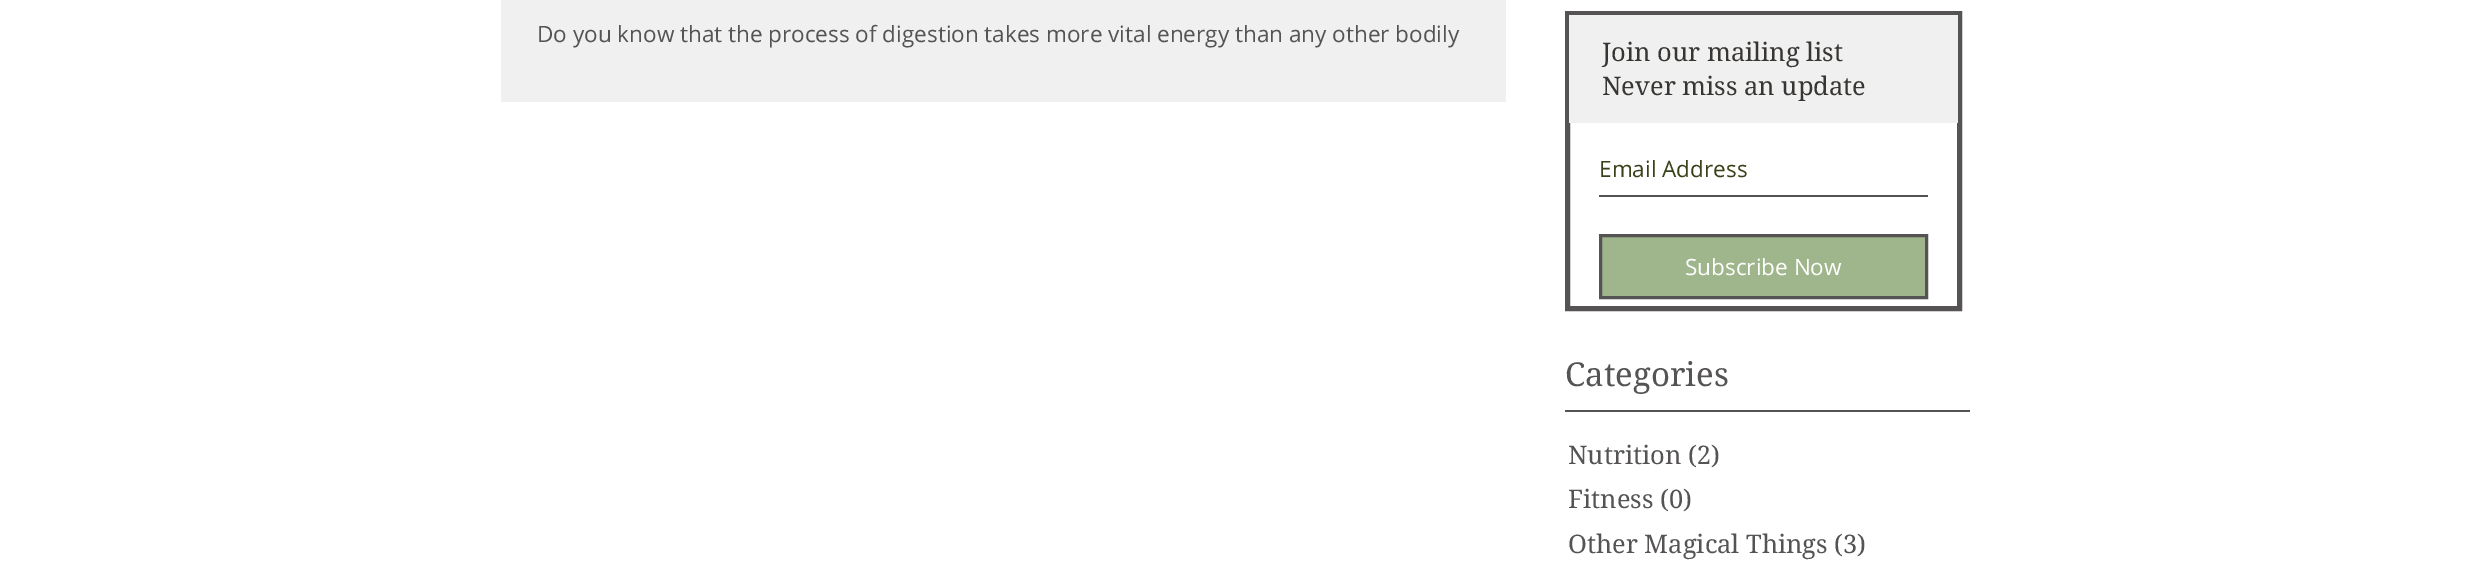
%!PS-Adobe-3.0
%%BoundingBox: 0 0 2469 565
%%LanguageLevel: 3
%%Pages: 1
%%EndComments
%%BeginProlog
/setink { 3 { 255 div 3 1 roll } repeat setrgbcolor } def
/usefont { [ exch dup neg 0 0 3 -1 roll 0 0 ] selectfont } def
/drawtext { setink usefont moveto show } def
/fillbox { setink rectfill } def
%%EndProlog
%%BeginSetup
<< /PageSize [2469 565] >> setpagedevice
%%EndSetup
%%Page: 1 1
0 565 translate 1 -1 scale
4 setmiterlimit
0 0 2469 565 255 255 255 fillbox
501 0 1005 102 240 240 240 fillbox
(Do you know that the process of digestion takes more vital energy than any other bodily) 537 42 /OpenSans-Regular 22.5 85 83 83 drawtext
5 setlinewidth
1567.5 13.5 392 295 rectstroke
1569 15 389 108 240 240 240 fillbox
(Join our mailing list) 1602 61 /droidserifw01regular-Regular 25.5 56 54 51 drawtext
(Never miss an update) 1602 95 /droidserifw01regular-Regular 25.5 56 54 51 drawtext
1599 195 329 2 85 83 83 fillbox
(Email Address) 1599 177 /OpenSans-Regular 22.5 56 65 25 drawtext
159 181 139 setink
1600.5 235.5 moveto 1926.5 235.5 lineto 1926.5 297.5 lineto 1600.5 297.5 lineto closepath gsave fill grestore
85 83 83 setink
3 setlinewidth
stroke
(Subscribe Now) 1685 275 /OpenSans-Regular 22.5 255 255 255 drawtext
(Categories) 1565 386 /droidserifw01regular-Regular 33 85 83 83 drawtext
1565 410 405 2 85 83 83 fillbox
(Nutrition \(2\)) 1568 464 /droidserifw01regular-Regular 25.5 85 83 83 drawtext
(Fitness \(0\)) 1568 508 /droidserifw01regular-Regular 25.5 85 83 83 drawtext
(Other Magical Things \(3\)) 1568 553 /droidserifw01regular-Regular 25.5 85 83 83 drawtext
showpage
%%EOF
